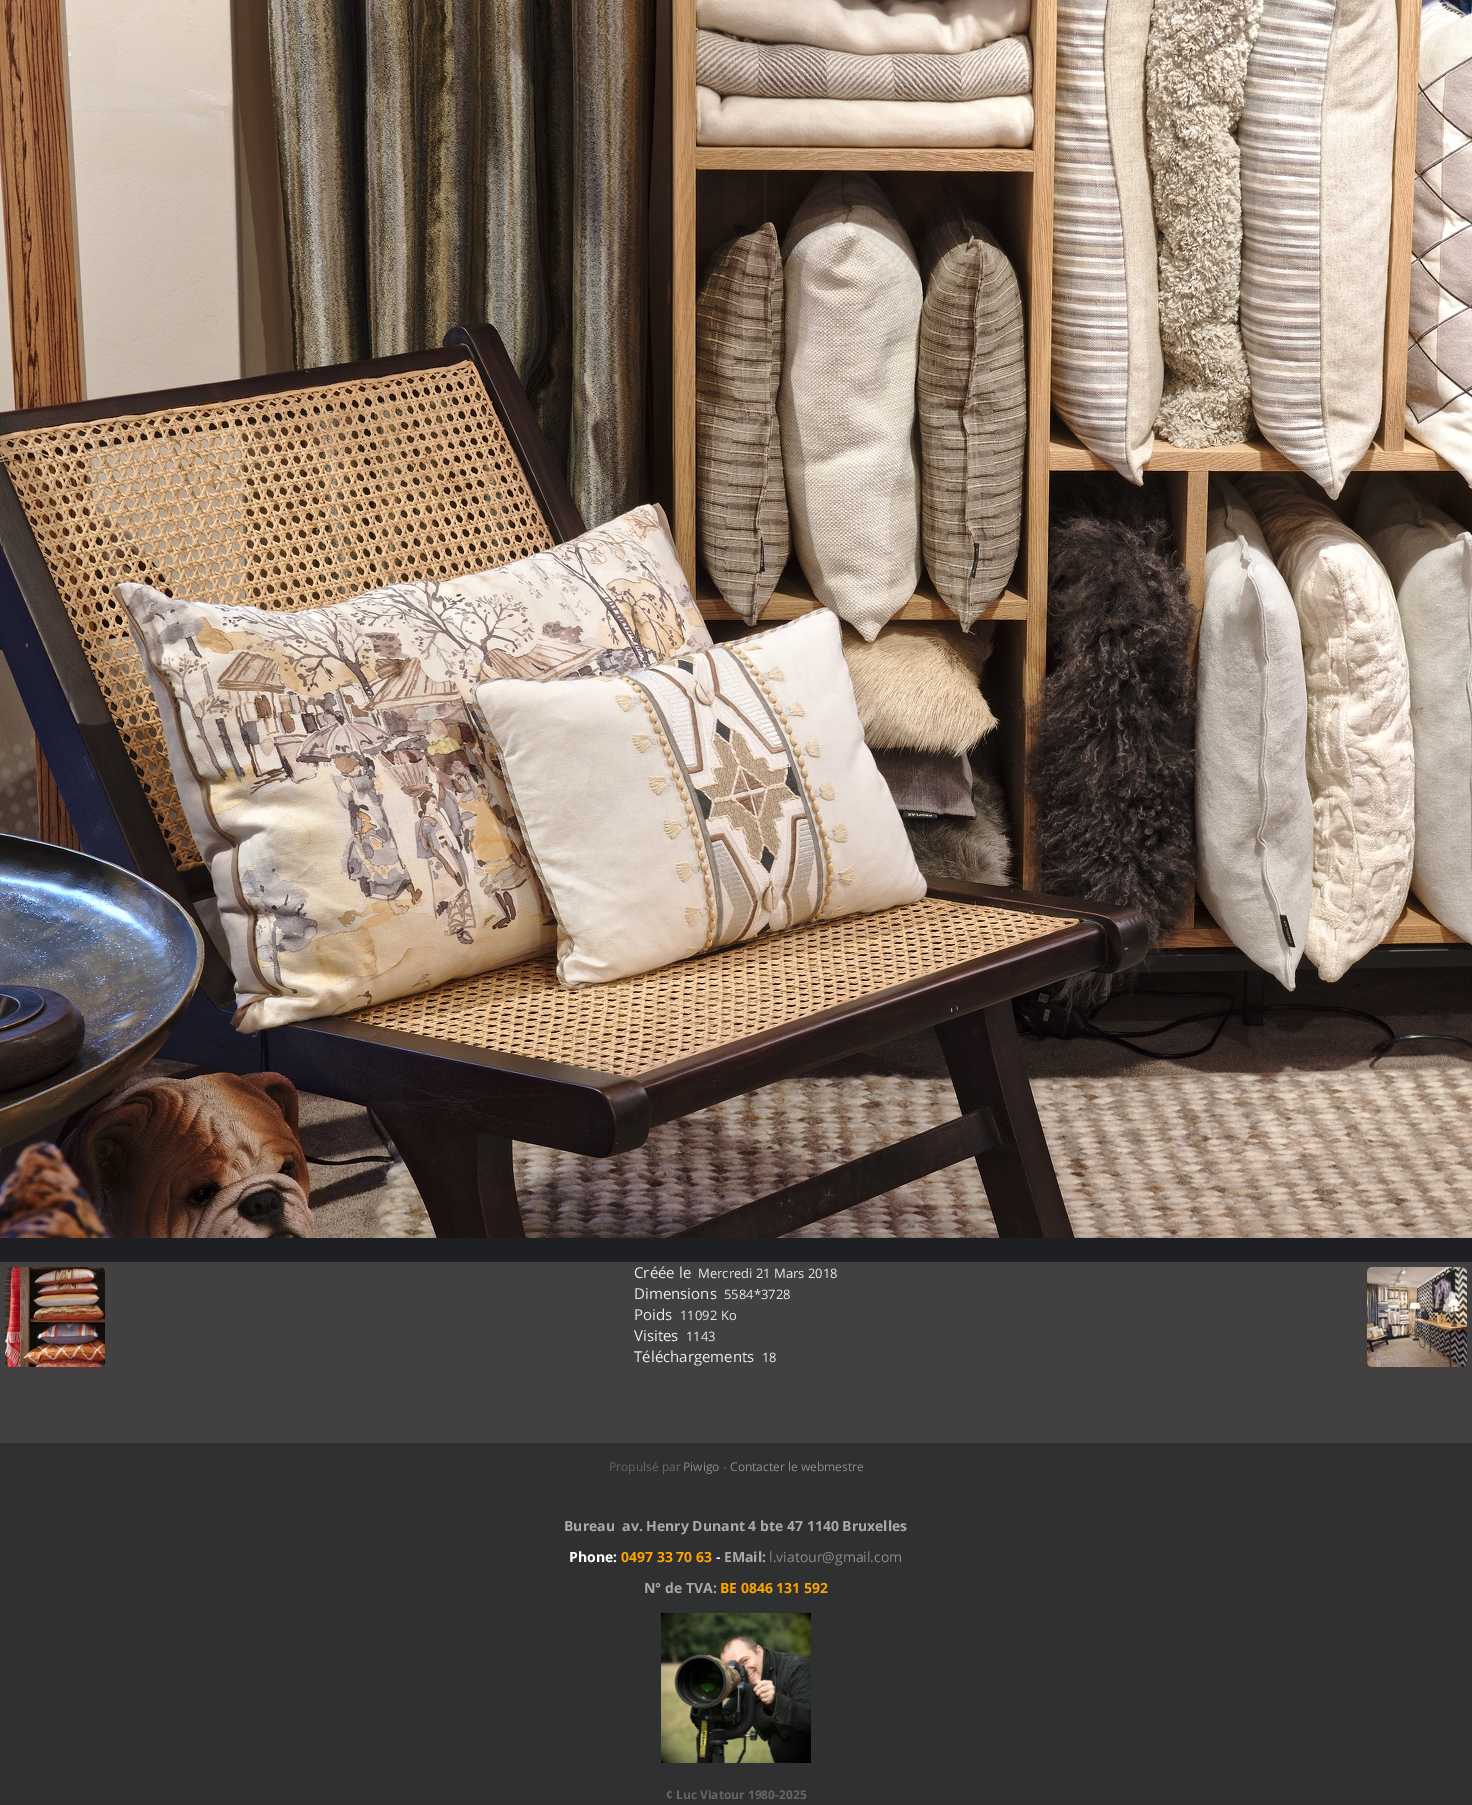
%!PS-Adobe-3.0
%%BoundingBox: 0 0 1472 1805
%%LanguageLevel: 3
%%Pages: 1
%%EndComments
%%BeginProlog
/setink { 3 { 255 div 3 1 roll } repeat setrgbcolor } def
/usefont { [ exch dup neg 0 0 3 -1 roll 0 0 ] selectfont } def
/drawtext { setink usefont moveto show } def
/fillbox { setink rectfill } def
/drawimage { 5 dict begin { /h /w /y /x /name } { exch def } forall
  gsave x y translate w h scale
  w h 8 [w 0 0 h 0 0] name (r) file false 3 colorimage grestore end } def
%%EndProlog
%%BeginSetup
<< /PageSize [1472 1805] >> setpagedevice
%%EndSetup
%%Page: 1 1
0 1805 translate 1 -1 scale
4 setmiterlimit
0 0 1472 1805 30 31 35 fillbox
(assets/img1.rgb) 0 0 1472 1238 drawimage
0 1262 1472 181 66 64 64 fillbox
(Créée le) 634 1278 /OpenSans-Regular 15 234 234 233 drawtext
(Mercredi 21 Mars 2018) 698 1278 /OpenSans-Regular 13 234 234 233 drawtext
(Dimensions) 634 1299 /OpenSans-Regular 15 234 234 233 drawtext
(5584*3728) 724 1299 /OpenSans-Regular 13 234 234 233 drawtext
(Poids) 634 1320 /OpenSans-Regular 15 234 234 233 drawtext
(11092 Ko) 680 1320 /OpenSans-Regular 13 234 234 233 drawtext
(Visites) 634 1341 /OpenSans-Regular 15 234 234 233 drawtext
(1143) 686 1341 /OpenSans-Regular 13 234 234 233 drawtext
(Téléchargements) 634 1362 /OpenSans-Regular 15 234 234 233 drawtext
(18) 762 1362 /OpenSans-Regular 13 234 234 233 drawtext
(assets/img2.rgb) 5 1267 100 100 drawimage
(assets/img3.rgb) 1367 1267 100 100 drawimage
0 1443 1472 362 47 48 50 fillbox
(Propulsé par) 609 1471 /OpenSans-Regular 12 102 102 102 drawtext
(Piwigo) 683 1471 /OpenSans-Regular 12 141 139 139 drawtext
(-) 723 1471 /OpenSans-Regular 12 102 102 102 drawtext
(Contacter le webmestre) 730 1471 /OpenSans-Regular 12 141 139 139 drawtext
(Bureau  av. Henry Dunant 4 bte 47 1140 Bruxelles) 564 1531 /OpenSans-Bold 14 169 169 169 drawtext
(Phone:) 569 1562 /OpenSans-Bold 14 255 255 255 drawtext
(0497 33 70 63) 621 1562 /OpenSans-Bold 14 255 165 0 drawtext
(-) 716 1562 /OpenSans-Bold 14 255 255 255 drawtext
(EMail:) 724 1562 /OpenSans-Bold 14 169 169 169 drawtext
(l.viatour@gmail.com) 769 1562 /OpenSans-Regular 14 141 139 139 drawtext
(N° de TVA:) 644 1593 /OpenSans-Bold 14 169 169 169 drawtext
(BE 0846 131 592) 720 1593 /OpenSans-Bold 14 255 165 0 drawtext
(assets/img4.rgb) 661 1613 150 150 drawimage
(¢ Luc Viatour 1980-2025) 666 1799 /OpenSans-Bold 12 102 102 102 drawtext
showpage
%%EOF
